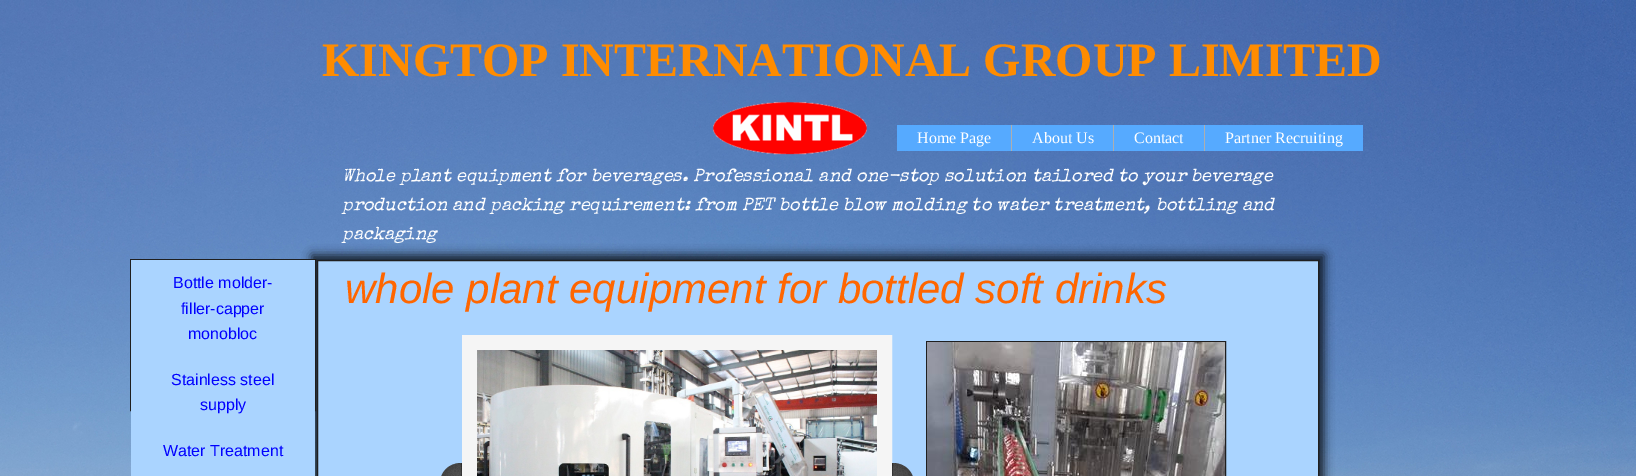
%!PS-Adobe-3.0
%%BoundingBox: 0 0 1636 476
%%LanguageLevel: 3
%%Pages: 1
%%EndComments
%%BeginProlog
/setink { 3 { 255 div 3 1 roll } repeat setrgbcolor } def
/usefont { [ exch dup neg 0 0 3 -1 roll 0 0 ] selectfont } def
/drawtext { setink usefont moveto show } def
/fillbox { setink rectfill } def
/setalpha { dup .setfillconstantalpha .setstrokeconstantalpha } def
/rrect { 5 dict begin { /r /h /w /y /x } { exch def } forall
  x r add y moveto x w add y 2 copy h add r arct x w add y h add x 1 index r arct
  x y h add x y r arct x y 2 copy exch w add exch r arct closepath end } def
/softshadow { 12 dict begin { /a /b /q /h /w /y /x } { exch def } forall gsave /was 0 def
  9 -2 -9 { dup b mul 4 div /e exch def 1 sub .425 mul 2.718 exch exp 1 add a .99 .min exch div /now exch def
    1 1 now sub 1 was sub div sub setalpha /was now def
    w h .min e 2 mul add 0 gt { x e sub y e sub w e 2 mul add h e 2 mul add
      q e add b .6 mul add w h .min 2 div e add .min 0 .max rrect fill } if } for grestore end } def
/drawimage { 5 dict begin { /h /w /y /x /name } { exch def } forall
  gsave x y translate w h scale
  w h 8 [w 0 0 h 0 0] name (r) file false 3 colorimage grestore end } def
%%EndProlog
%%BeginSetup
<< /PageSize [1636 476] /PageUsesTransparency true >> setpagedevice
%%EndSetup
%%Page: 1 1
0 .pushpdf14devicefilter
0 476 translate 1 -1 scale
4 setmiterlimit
0 0 1636 476 255 255 255 fillbox
(assets/img1.rgb) 0 0 1636 476 drawimage
0 0 0 setink
312 255 1012 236 0 5 0.8 softshadow
170 212 255 setink
317.5 260.5 moveto 1318.5 260.5 lineto 1318.5 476.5 lineto 317.5 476.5 lineto closepath gsave fill grestore
31 31 31 setink
stroke
(KINGTOP INTERNATIONAL GROUP LIMITED) 322 76 /LiberationSerif-Bold 48 255 140 0 drawtext
(assets/img2.rgb) 713 102 154 53 drawimage
897 125 114 26 86 170 255 fillbox
1011 125 1 26 174 174 174 fillbox
(Home Page) 917 143 /LiberationSerif-Regular 16 255 255 255 drawtext
1012 125 101 26 86 170 255 fillbox
1113 125 1 26 174 174 174 fillbox
(About Us) 1032 143 /LiberationSerif-Regular 16 255 255 255 drawtext
1114 125 90 26 86 170 255 fillbox
1204 125 1 26 174 174 174 fillbox
(Contact) 1134 143 /LiberationSerif-Regular 16 255 255 255 drawtext
1205 125 158 26 86 170 255 fillbox
(Partner Recruiting) 1225 143 /LiberationSerif-Regular 16 255 255 255 drawtext
(Whole plant equipment for beverages. Professional and one-stop solution tailored to your beverage) 342 181 /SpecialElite-Italic 18 255 255 255 drawtext
(production and packing requirement: from PET bottle blow molding to water treatment, bottling and) 342 210 /SpecialElite-Italic 18 255 255 255 drawtext
(packaging) 342 239 /SpecialElite-Italic 18 255 255 255 drawtext
31 31 31 setink
130.5 259.5 185 151 rectstroke
131 260 184 216 170 212 255 fillbox
(Bottle molder-) 173 288 /LiberationSans-Regular 16 0 0 255 drawtext
(filler-capper) 181 314 /LiberationSans-Regular 16 0 0 255 drawtext
(monobloc) 188 339 /LiberationSans-Regular 16 0 0 255 drawtext
(Stainless steel) 171 385 /LiberationSans-Regular 16 0 0 255 drawtext
(supply) 200 410 /LiberationSans-Regular 16 0 0 255 drawtext
(Water Treatment) 163 456 /LiberationSans-Regular 16 0 0 255 drawtext
(whole plant equipment for bottled soft drinks) 345 303 /LiberationSans-Italic 42 255 102 0 drawtext
(assets/img3.rgb) 441 463 21 13 drawimage
245 245 245 setink
15 setlinewidth
469.5 342.5 415 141 rectstroke
(assets/img4.rgb) 477 350 400 126 drawimage
(assets/img5.rgb) 892 463 21 13 drawimage
31 31 31 setink
1 setlinewidth
926.5 341.5 299 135 rectstroke
(assets/img6.rgb) 927 342 298 134 drawimage
.poppdf14devicefilter showpage
%%EOF
